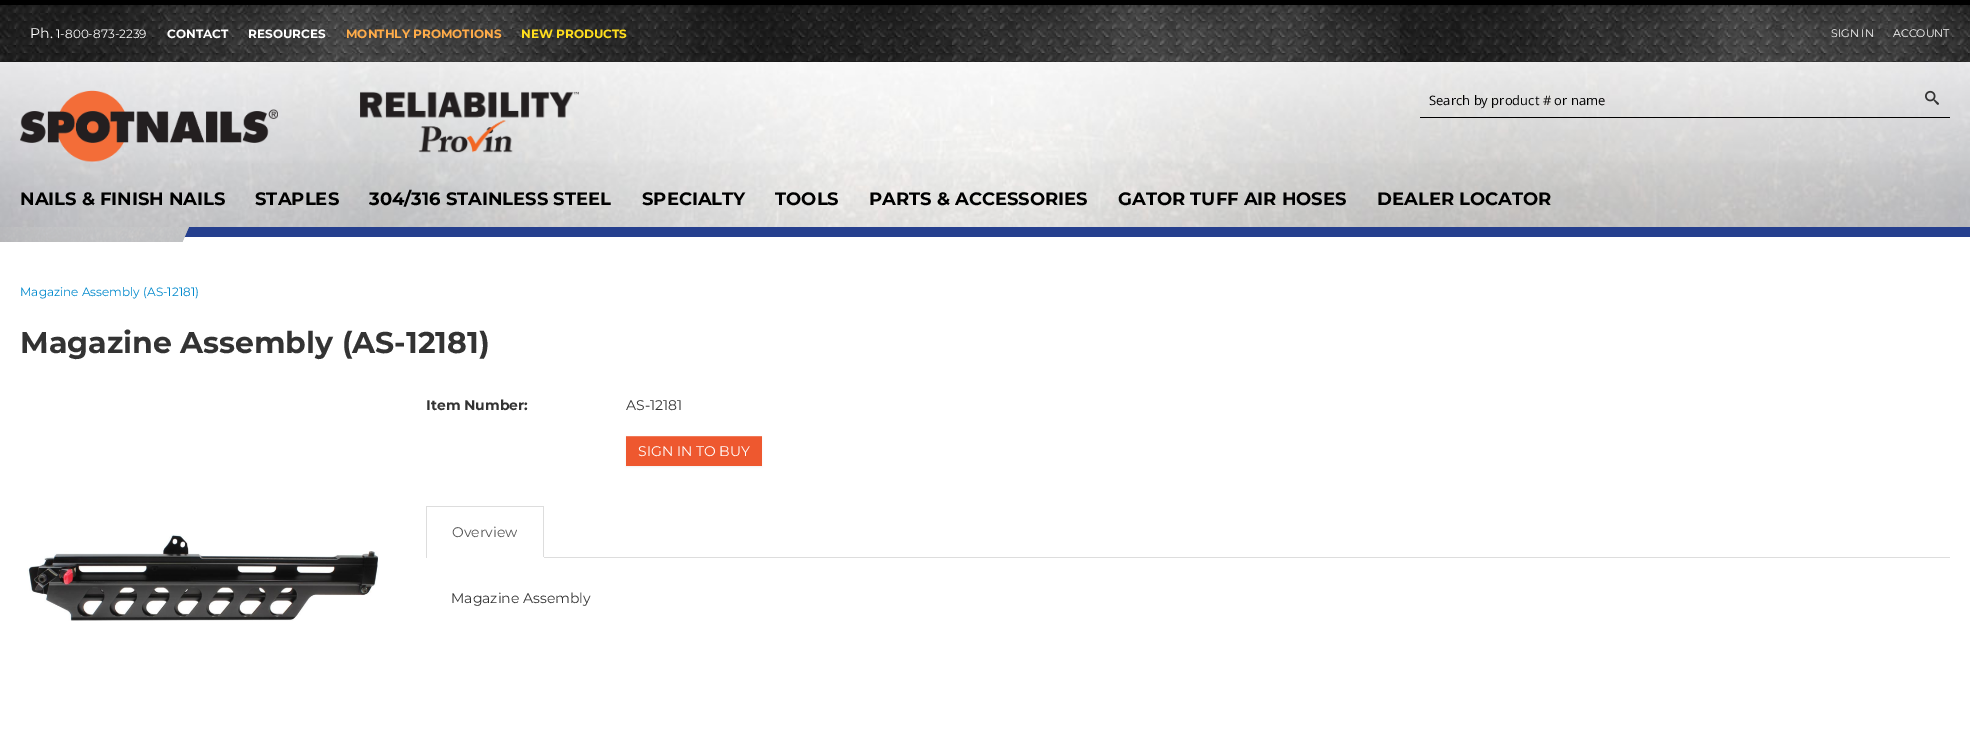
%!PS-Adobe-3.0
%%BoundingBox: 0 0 1970 732
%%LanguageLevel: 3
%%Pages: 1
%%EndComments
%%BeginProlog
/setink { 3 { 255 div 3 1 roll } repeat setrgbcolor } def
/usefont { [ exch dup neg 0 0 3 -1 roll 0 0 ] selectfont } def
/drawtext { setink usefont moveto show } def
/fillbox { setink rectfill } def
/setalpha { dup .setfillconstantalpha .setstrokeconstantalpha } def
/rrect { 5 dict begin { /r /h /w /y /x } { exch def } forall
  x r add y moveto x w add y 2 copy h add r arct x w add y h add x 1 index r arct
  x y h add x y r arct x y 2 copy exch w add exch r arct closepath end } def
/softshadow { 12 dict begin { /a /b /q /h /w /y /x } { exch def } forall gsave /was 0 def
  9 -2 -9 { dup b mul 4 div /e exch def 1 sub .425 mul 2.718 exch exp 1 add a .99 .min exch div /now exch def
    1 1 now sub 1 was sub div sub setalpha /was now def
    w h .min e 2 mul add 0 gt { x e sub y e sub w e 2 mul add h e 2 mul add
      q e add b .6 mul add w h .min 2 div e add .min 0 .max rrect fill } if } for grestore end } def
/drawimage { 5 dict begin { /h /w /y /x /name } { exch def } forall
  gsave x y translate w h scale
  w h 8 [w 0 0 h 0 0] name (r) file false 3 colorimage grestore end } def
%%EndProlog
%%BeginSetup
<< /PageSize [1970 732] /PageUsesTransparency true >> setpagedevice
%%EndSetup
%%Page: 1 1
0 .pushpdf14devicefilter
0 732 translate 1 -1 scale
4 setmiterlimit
0 0 1970 732 255 255 255 fillbox
(assets/img1.rgb) 0 5 1970 57 drawimage
0 0 1970 5 0 0 0 fillbox
(Ph.) 30 38 /Montserrat-Regular 14 255 255 255 drawtext
(1-800-873-2239) 56 38 /Montserrat-Regular 12 255 255 255 drawtext
(CONTACT) 167 38 /Montserrat-Bold 12 255 255 255 drawtext
(RESOURCES) 248 38 /Montserrat-Bold 12 255 255 255 drawtext
(MONTHLY PROMOTIONS) 346 38 /Montserrat-Bold 12 255 172 73 drawtext
(NEW PRODUCTS) 521 38 /Montserrat-Bold 12 255 222 29 drawtext
(assets/img2.rgb) 0 62 1970 165 drawimage
(SIGN IN) 1831 37 /Montserrat-Regular 11 255 255 255 drawtext
(ACCOUNT) 1893 37 /Montserrat-Regular 11 255 255 255 drawtext
(NAILS & FINISH NAILS) 20 205 /Montserrat-Bold 18 0 0 0 drawtext
(STAPLES) 255 205 /Montserrat-Bold 18 0 0 0 drawtext
(304/316 STAINLESS STEEL) 369 205 /Montserrat-Bold 18 0 0 0 drawtext
(SPECIALTY) 642 205 /Montserrat-Bold 18 0 0 0 drawtext
(TOOLS) 775 205 /Montserrat-Bold 18 0 0 0 drawtext
(PARTS & ACCESSORIES) 869 205 /Montserrat-Bold 18 0 0 0 drawtext
(GATOR TUFF AIR HOSES) 1118 205 /Montserrat-Bold 18 0 0 0 drawtext
(DEALER LOCATOR) 1377 205 /Montserrat-Bold 18 0 0 0 drawtext
(assets/img3.rgb) 20 90 258 72 drawimage
(assets/img4.rgb) 360 91 219 62 drawimage
1420 117 530 1 0 0 0 fillbox
(Search by product # or name) 1429 105 /OpenSans-Regular 13 0 0 0 drawtext
(assets/img5.rgb) 1925 90 14 15 drawimage
189 227 1781 10 37 63 142 fillbox
(assets/img6.rgb) 0 227 189 15 drawimage
(Magazine Assembly \(AS-12181\)) 20 296 /Montserrat-Regular 12 0 136 204 drawtext
(Magazine Assembly \(AS-12181\)) 20 353 /Montserrat-Bold 30 51 51 51 drawtext
(assets/img7.rgb) 27 534 352 87 drawimage
(Item Number:) 426 410 /Montserrat-Bold 14 51 51 51 drawtext
(AS-12181) 626 410 /Montserrat-Regular 14 51 51 51 drawtext
0 0 0 setink
626 437 136 30 0 1 0.05 softshadow
626 437 136 29 238 88 47 fillbox
626 436 136 1 241 121 89 fillbox
(SIGN IN TO BUY) 638 456 /Montserrat-Regular 14 255 255 255 drawtext
544 557 1406 1 221 221 221 fillbox
426 506 118 1 221 221 221 fillbox
543 506 1 52 221 221 221 fillbox
543 557 1 1 255 255 255 fillbox
426 506 1 52 221 221 221 fillbox
(Overview) 452 537 /Montserrat-Regular 14 85 85 85 drawtext
(Magazine Assembly) 451 603 /Montserrat-Regular 14 51 51 51 drawtext
.poppdf14devicefilter showpage
%%EOF
